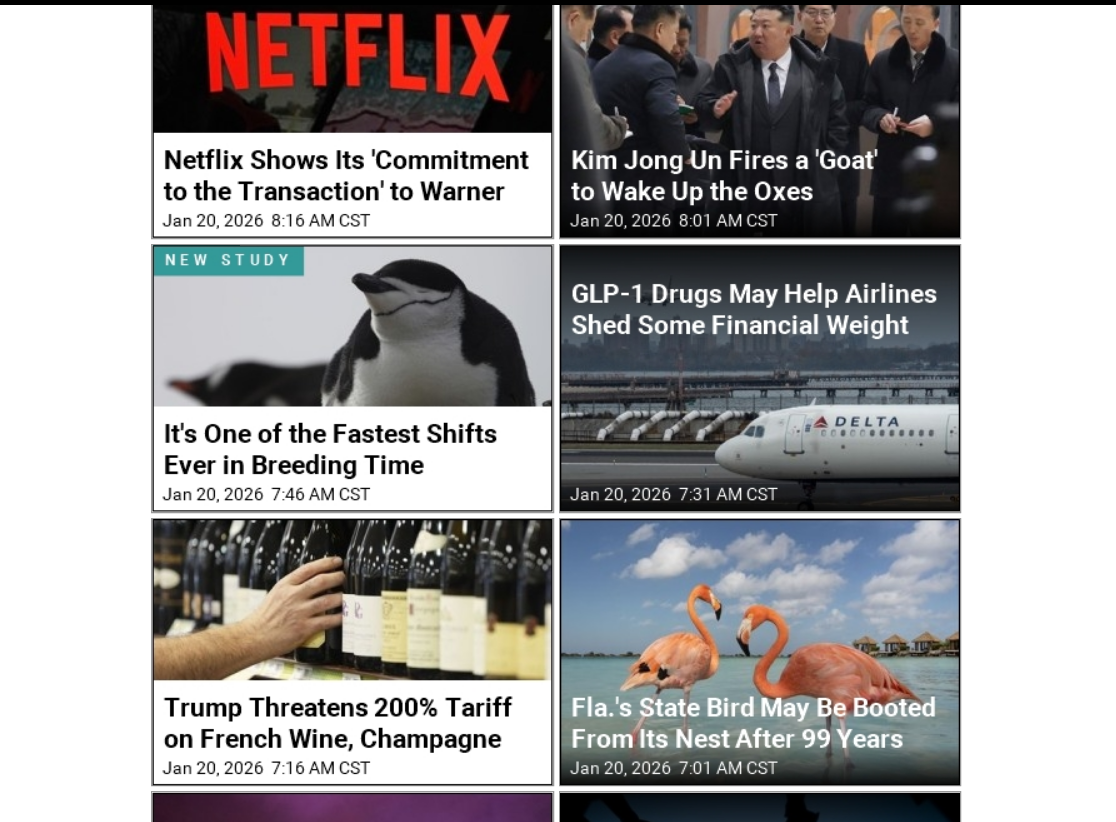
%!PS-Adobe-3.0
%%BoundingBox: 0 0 1116 822
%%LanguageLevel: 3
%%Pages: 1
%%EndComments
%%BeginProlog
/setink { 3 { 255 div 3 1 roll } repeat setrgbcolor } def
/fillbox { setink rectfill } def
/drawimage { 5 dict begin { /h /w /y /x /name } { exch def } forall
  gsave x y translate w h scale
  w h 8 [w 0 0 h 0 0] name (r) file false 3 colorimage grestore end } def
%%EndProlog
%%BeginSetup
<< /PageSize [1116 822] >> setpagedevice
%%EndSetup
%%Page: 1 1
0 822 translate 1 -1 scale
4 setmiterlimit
0 0 1116 822 255 255 255 fillbox
153 153 153 setink
151.5 -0.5 402 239 rectstroke
(assets/img1.rgb) 152 5 401 233 drawimage
559.5 -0.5 401 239 rectstroke
(assets/img2.rgb) 560 5 400 233 drawimage
151.5 244.5 402 268 rectstroke
(assets/img3.rgb) 152 245 401 267 drawimage
559.5 244.5 401 268 rectstroke
(assets/img4.rgb) 560 245 400 267 drawimage
151.5 518.5 402 267 rectstroke
(assets/img5.rgb) 152 519 401 267 drawimage
559.5 518.5 401 267 rectstroke
(assets/img6.rgb) 560 519 400 267 drawimage
151.5 791.5 402 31 rectstroke
(assets/img7.rgb) 152 792 401 30 drawimage
559.5 791.5 401 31 rectstroke
(assets/img8.rgb) 560 792 400 30 drawimage
0 0 1116 5 0 0 0 fillbox
showpage
%%EOF
